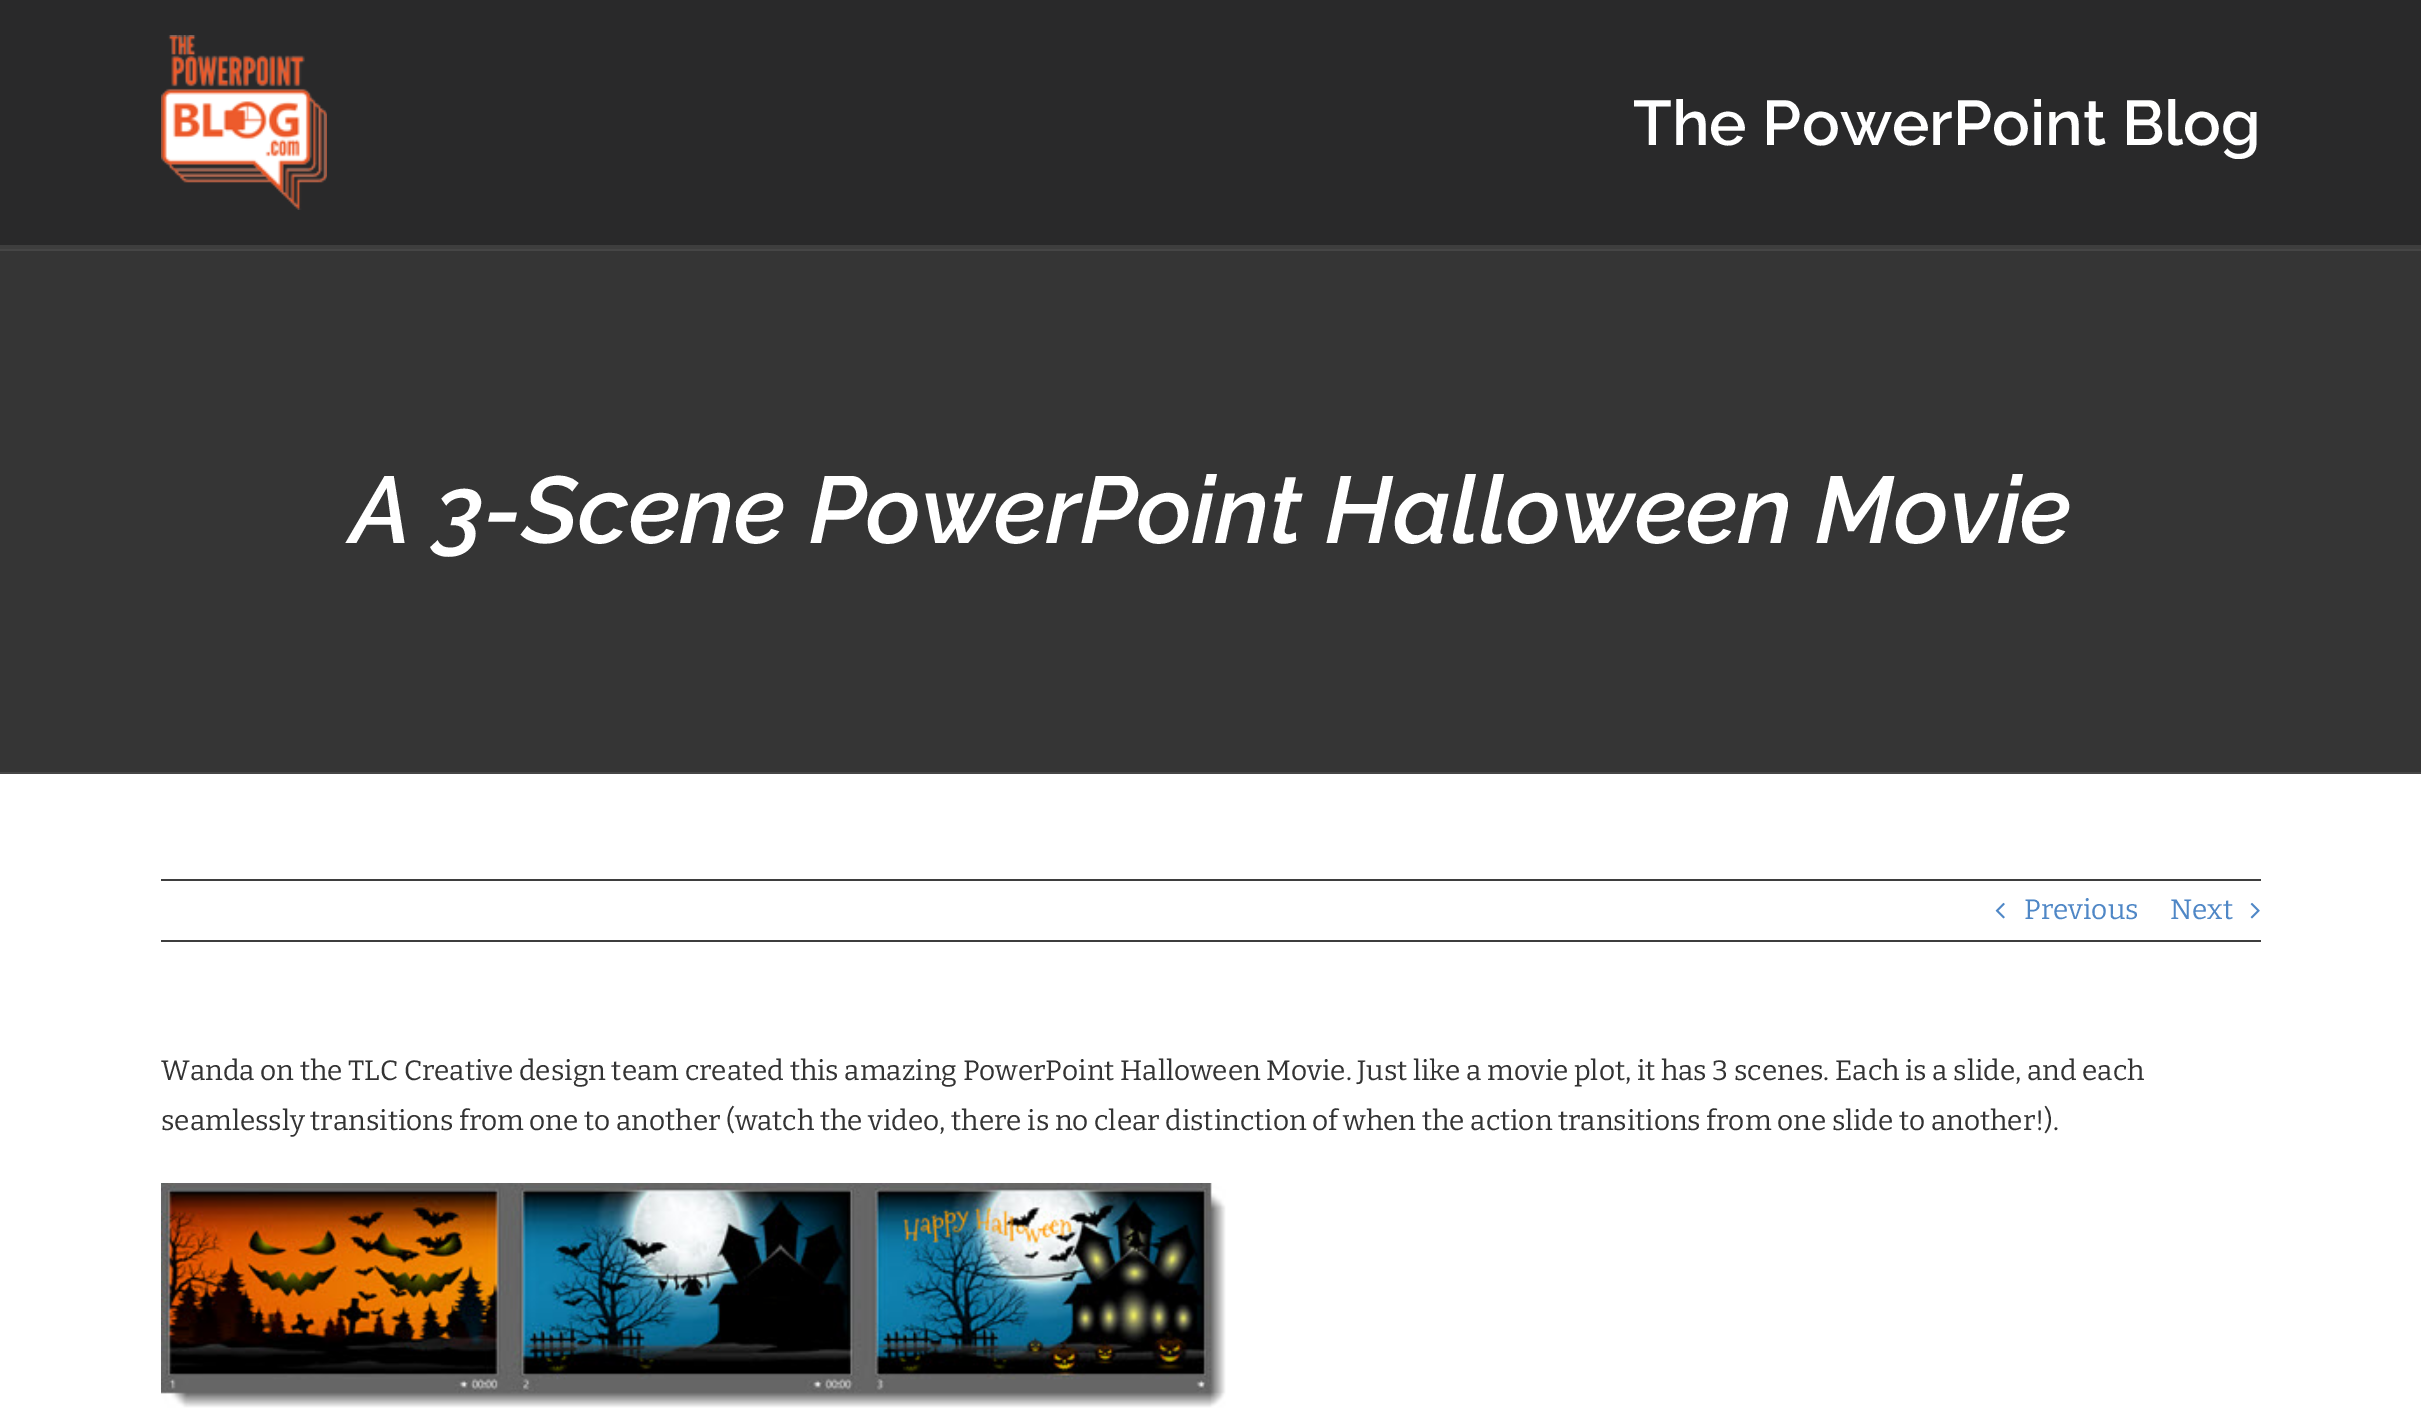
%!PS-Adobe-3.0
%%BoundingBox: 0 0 2421 1423
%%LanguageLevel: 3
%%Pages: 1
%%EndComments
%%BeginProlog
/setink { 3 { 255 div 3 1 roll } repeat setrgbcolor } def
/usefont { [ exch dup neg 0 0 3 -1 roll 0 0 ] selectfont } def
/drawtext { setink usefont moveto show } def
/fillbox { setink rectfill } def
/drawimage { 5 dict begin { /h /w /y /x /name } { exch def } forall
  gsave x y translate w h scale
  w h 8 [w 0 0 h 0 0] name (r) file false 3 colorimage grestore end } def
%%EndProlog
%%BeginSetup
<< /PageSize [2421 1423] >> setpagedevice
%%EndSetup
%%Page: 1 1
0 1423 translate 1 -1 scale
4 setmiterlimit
0 0 2421 1423 255 255 255 fillbox
0 0 2421 245 41 41 42 fillbox
(assets/img1.rgb) 161 35 166 175 drawimage
(The PowerPoint Blog) 1633 145 /Raleway-SemiBold 63 255 255 255 drawtext
0 245 2421 4 62 62 62 fillbox
0 251 2421 521 53 53 53 fillbox
0 249 2421 2 70 70 70 fillbox
0 772 2421 2 70 70 70 fillbox
(A 3-Scene PowerPoint Halloween Movie) 350 543 /Raleway-SemiBoldItalic 94.5 255 255 255 drawtext
161 879 2100 2 62 62 62 fillbox
161 940 2100 2 62 62 62 fillbox
(assets/img2.rgb) 1995 902 10 17 drawimage
(Previous) 2024 919 /Bitter-Regular 28 79 135 198 drawtext
(Next) 2170 919 /Bitter-Regular 28 79 135 198 drawtext
(assets/img3.rgb) 2250 902 10 17 drawimage
(Wanda on the TLC Creative design team created this amazing PowerPoint Halloween Movie. Just like a movie plot, it has 3 scenes. Each is a slide, and each) 161 1080 /Bitter-Regular 28 51 51 51 drawtext
(seamlessly transitions from one to another \(watch the video, there is no clear distinction of when the action transitions from one slide to another!\).) 161 1130 /Bitter-Regular 28 51 51 51 drawtext
(assets/img4.rgb) 161 1183 1065 225 drawimage
showpage
%%EOF
